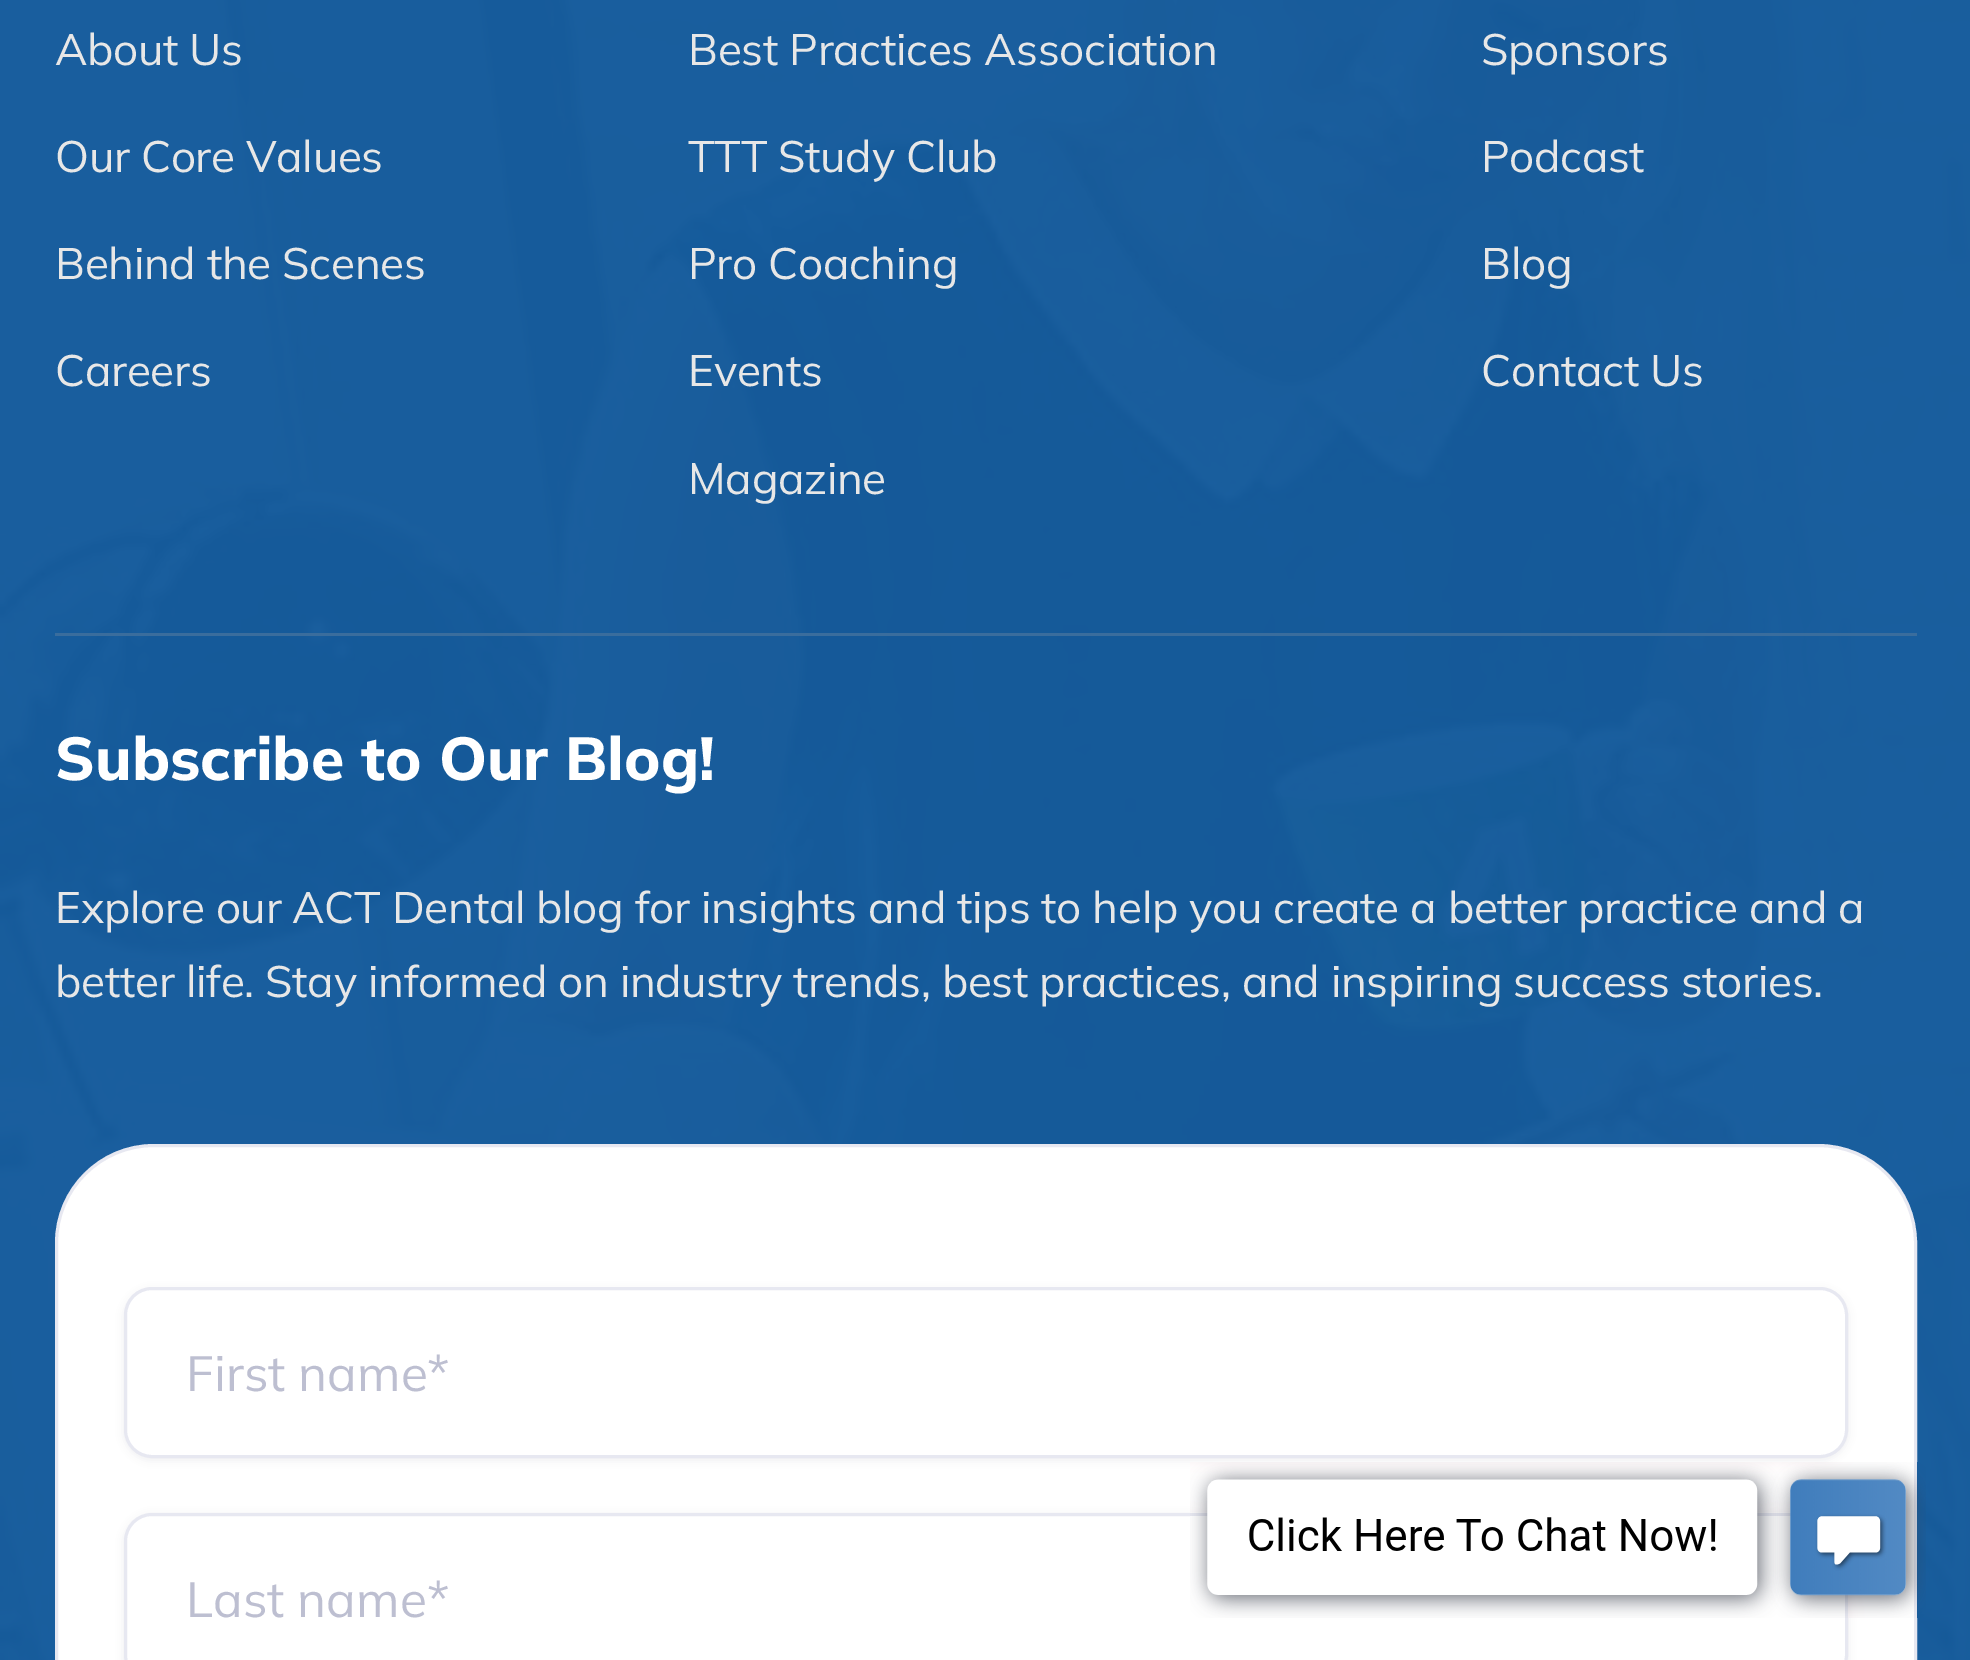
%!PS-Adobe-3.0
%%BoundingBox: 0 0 1970 1660
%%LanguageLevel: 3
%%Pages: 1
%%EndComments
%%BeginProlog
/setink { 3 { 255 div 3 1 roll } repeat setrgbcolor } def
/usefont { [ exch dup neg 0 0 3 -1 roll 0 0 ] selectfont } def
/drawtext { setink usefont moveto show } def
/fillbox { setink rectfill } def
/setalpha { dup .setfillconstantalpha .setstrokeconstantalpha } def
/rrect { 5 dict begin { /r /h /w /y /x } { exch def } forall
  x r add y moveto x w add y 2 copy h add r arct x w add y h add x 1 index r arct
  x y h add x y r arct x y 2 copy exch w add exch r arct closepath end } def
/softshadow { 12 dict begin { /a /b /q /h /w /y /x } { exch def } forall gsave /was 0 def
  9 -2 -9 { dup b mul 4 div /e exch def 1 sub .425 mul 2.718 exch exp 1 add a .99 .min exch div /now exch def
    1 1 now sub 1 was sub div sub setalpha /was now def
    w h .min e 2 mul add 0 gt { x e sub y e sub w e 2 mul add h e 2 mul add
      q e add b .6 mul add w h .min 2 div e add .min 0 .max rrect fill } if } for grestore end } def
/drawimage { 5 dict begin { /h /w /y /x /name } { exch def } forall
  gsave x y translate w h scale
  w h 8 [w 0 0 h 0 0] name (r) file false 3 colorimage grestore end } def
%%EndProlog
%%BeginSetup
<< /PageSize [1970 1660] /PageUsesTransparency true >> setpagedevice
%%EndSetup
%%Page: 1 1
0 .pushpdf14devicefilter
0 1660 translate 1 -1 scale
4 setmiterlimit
0 0 1970 1660 255 255 255 fillbox
(assets/img1.rgb) 0 0 1970 1660 drawimage
/Mulish-Regular 44 usefont
231 231 231 setink
55 65 moveto -0.28 0 (About Us) ashow
55 172 moveto -0.28 0 (Our Core Values) ashow
55 279 moveto -0.28 0 (Behind the Scenes) ashow
55 386 moveto -0.28 0 (Careers) ashow
688 65 moveto -0.28 0 (Best Practices Association) ashow
688 172 moveto -0.28 0 (TTT Study Club) ashow
688 279 moveto -0.28 0 (Pro Coaching) ashow
688 386 moveto -0.28 0 (Events) ashow
688 494 moveto -0.28 0 (Magazine) ashow
1481 65 moveto -0.28 0 (Sponsors) ashow
1481 172 moveto -0.28 0 (Podcast) ashow
1481 279 moveto -0.28 0 (Blog) ashow
1481 386 moveto -0.28 0 (Contact Us) ashow
55 633 1862 3 58 109 157 fillbox
(Subscribe to Our Blog!) 55 780 /Mulish-ExtraBold 60.5 255 255 255 drawtext
/Mulish-Regular 44 usefont
231 231 231 setink
55 923 moveto -0.28 0 (Explore our ACT Dental blog for insights and tips to help you create a better practice and a) ashow
55 997 moveto -0.28 0 (better life. Stay informed on industry trends, best practices, and inspiring success stories.) ashow
255 255 255 setink
56.5 1145.5 1859 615 97.5 rrect gsave fill grestore
231 232 241 setink
3 setlinewidth
stroke
31 37 89 setink
124 1290 1724 170 28 4 0.07 softshadow
255 255 255 setink
125.5 1288.5 1721 168 26.5 rrect gsave fill grestore
231 232 241 setink
stroke
(First name*) 186 1391 /Mulish-Regular 49.5 189 191 209 drawtext
31 37 89 setink
124 1515 1724 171 28 4 0.07 softshadow
255 255 255 setink
125.5 1514.5 1721 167 26.5 rrect gsave fill grestore
231 232 241 setink
stroke
(Last name*) 186 1617 /Mulish-Regular 49.5 189 191 209 drawtext
(assets/img2.rgb) 1190 1462 736 156 drawimage
.poppdf14devicefilter showpage
%%EOF
